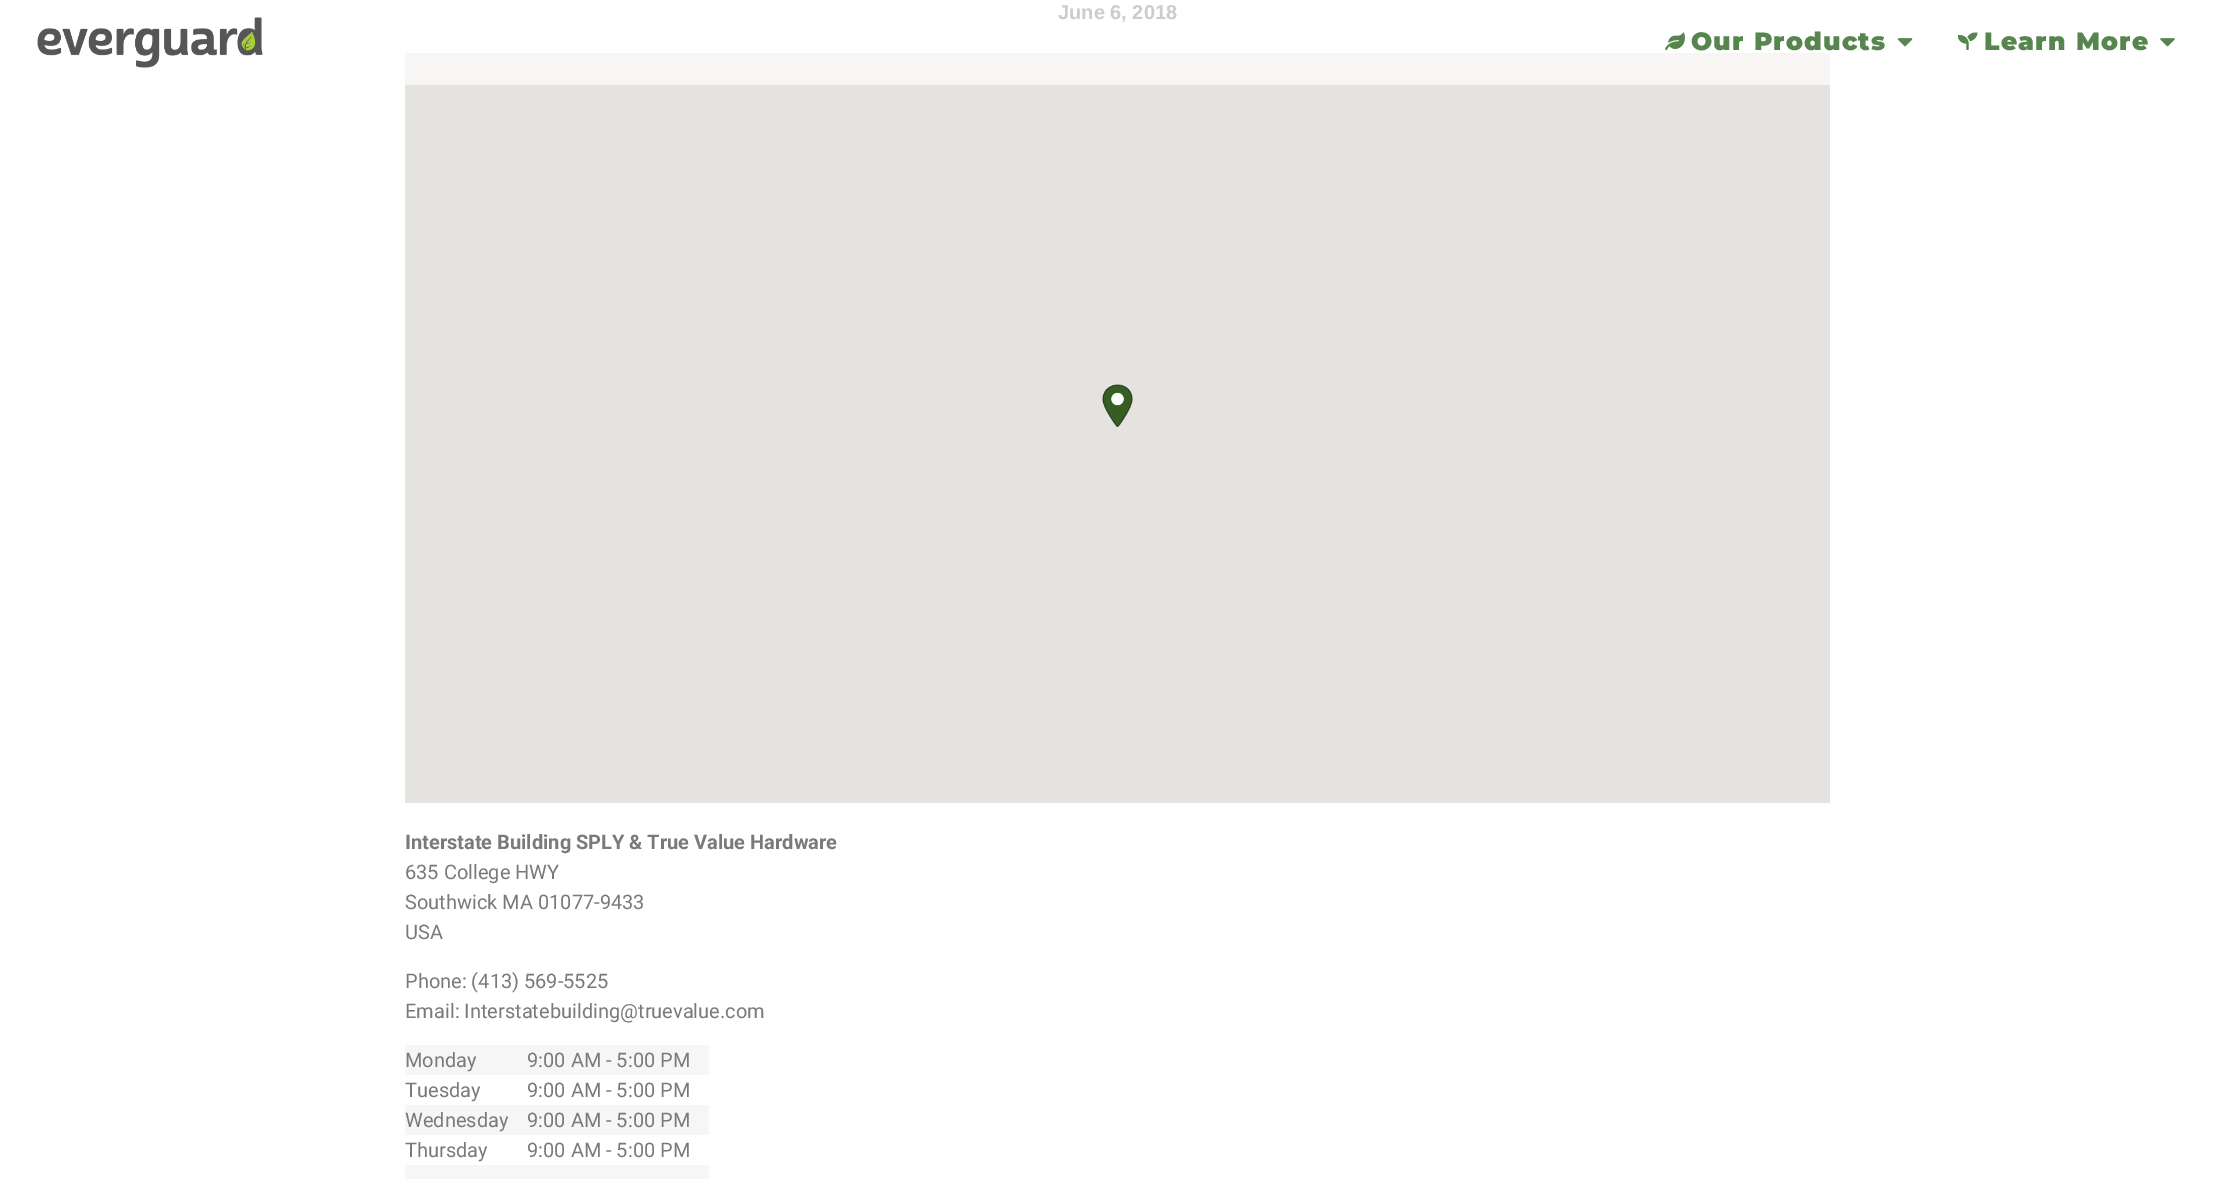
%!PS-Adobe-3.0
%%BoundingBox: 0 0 2234 1179
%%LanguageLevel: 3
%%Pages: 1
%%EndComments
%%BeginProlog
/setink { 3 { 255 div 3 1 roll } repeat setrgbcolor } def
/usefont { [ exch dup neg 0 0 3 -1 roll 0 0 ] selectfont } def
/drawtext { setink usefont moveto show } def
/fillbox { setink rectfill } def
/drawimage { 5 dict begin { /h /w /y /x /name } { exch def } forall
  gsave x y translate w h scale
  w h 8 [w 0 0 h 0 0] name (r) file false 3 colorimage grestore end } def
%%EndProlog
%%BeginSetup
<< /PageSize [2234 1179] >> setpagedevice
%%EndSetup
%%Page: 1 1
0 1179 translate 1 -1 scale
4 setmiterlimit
0 0 2234 1179 255 255 255 fillbox
(June 6, 2018) 1058 19 /LiberationSans-Bold 20 202 204 205 drawtext
405 85 1425 718 229 227 223 fillbox
405 53 1425 32 247 246 245 fillbox
(assets/img1.rgb) 1102 384 31 43 drawimage
(Interstate Building SPLY & True Value Hardware) 405 849 /Roboto-Bold 20 122 122 122 drawtext
(635 College HWY) 405 879 /Roboto-Regular 20 122 122 122 drawtext
(Southwick MA 01077-9433) 405 909 /Roboto-Regular 20 122 122 122 drawtext
(USA) 405 939 /Roboto-Regular 20 122 122 122 drawtext
(Phone: \(413\) 569-5525) 405 988 /Roboto-Regular 20 122 122 122 drawtext
(Email: Interstatebuilding@truevalue.com) 405 1018 /Roboto-Regular 20 122 122 122 drawtext
405 1045 304 30 246 246 246 fillbox
(Monday) 405 1067 /Roboto-Regular 20 122 122 122 drawtext
(9:00 AM - 5:00 PM) 527 1067 /Roboto-Regular 20 122 122 122 drawtext
(Tuesday) 405 1097 /Roboto-Regular 20 122 122 122 drawtext
(9:00 AM - 5:00 PM) 527 1097 /Roboto-Regular 20 122 122 122 drawtext
405 1105 304 30 246 246 246 fillbox
(Wednesday) 405 1127 /Roboto-Regular 20 122 122 122 drawtext
(9:00 AM - 5:00 PM) 527 1127 /Roboto-Regular 20 122 122 122 drawtext
(Thursday) 405 1157 /Roboto-Regular 20 122 122 122 drawtext
(9:00 AM - 5:00 PM) 527 1157 /Roboto-Regular 20 122 122 122 drawtext
405 1165 304 14 246 246 246 fillbox
(assets/img2.rgb) 37 17 226 51 drawimage
(assets/img3.rgb) 1665 32 20 19 drawimage
/Montserrat-Black 25 usefont
87 133 78 setink
1691 50 moveto 1.25 0 (Our Products) ashow
(assets/img4.rgb) 1897 38 16 9 drawimage
(assets/img5.rgb) 1958 32 20 18 drawimage
1984 50 moveto 1.25 0 (Learn More) ashow
(assets/img6.rgb) 2160 38 15 9 drawimage
showpage
%%EOF
